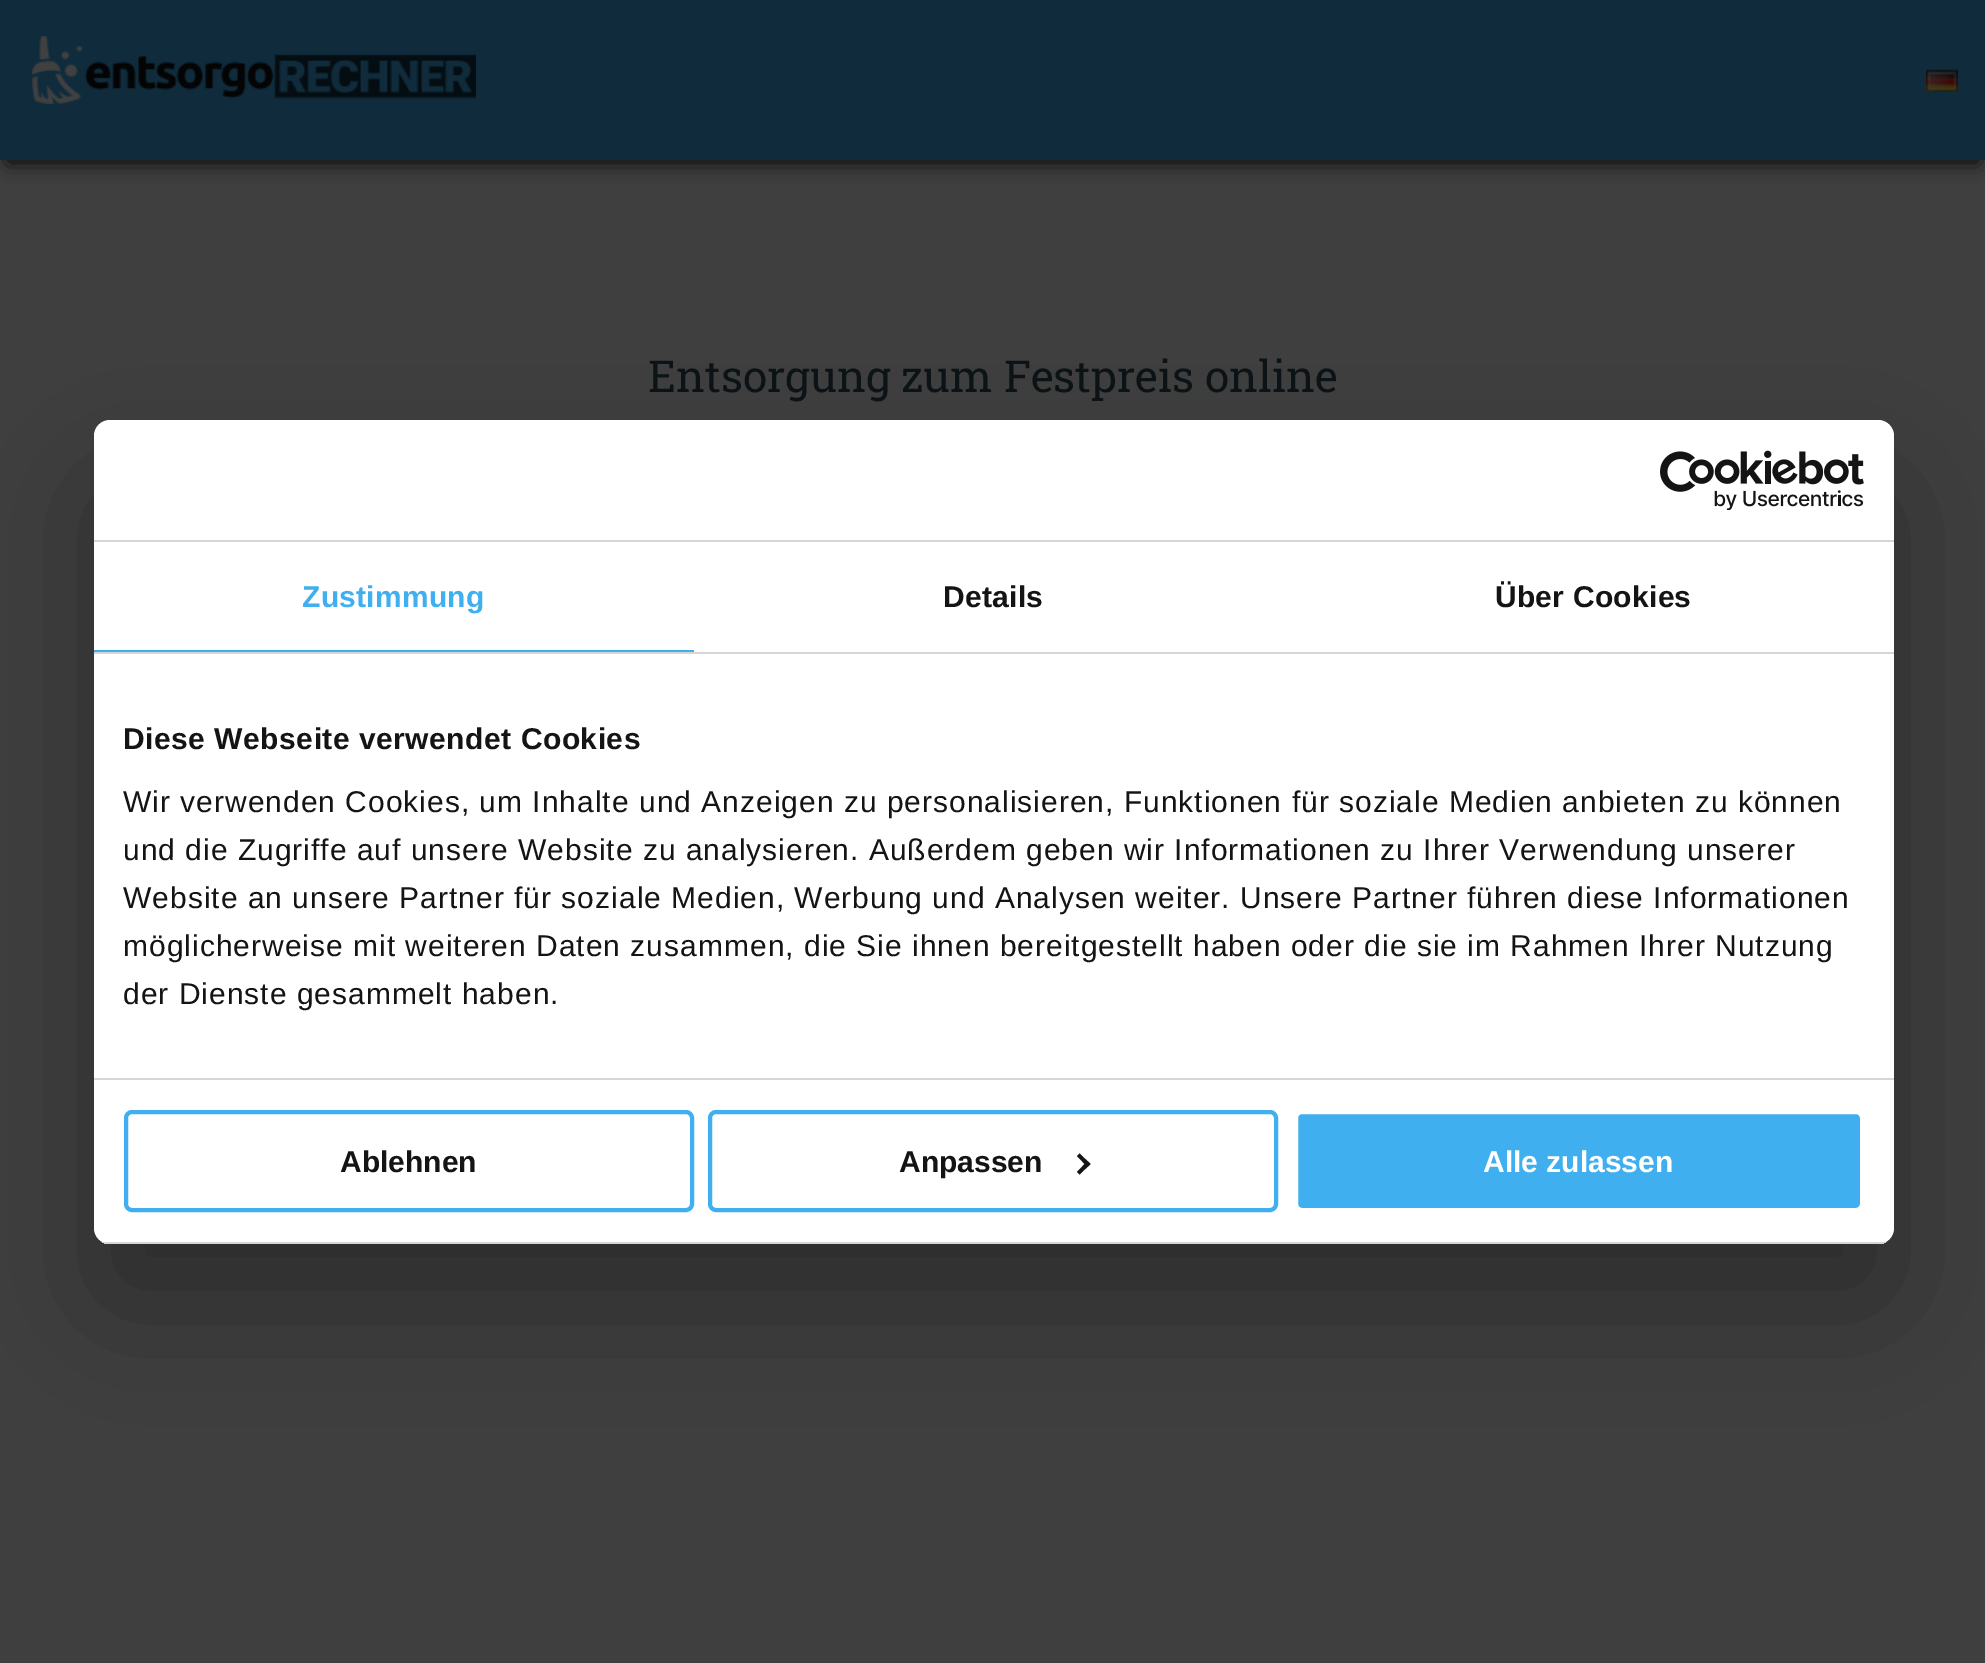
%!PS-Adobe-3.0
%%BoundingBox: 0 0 1985 1663
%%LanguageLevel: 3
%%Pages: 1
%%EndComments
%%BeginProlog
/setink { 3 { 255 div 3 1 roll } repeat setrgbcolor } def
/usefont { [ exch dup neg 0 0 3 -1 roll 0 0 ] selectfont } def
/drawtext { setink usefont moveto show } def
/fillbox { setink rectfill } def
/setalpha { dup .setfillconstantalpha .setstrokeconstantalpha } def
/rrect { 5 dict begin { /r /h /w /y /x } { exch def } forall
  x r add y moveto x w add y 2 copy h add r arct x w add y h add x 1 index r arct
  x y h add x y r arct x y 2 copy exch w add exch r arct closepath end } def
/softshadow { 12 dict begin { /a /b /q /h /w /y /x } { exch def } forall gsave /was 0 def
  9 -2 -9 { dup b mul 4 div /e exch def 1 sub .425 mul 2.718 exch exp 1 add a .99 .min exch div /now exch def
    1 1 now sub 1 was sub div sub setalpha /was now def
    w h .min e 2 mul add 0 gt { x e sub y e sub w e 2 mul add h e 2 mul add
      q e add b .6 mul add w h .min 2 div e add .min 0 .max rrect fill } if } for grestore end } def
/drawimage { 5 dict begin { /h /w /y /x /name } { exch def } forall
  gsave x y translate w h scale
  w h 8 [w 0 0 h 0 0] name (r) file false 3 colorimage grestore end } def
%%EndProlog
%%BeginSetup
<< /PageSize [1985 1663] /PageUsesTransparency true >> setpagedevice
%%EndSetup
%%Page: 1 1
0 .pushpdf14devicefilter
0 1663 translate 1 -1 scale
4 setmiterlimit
0 0 1985 1663 63 63 63 fillbox
0 0 0 setink
8 18 1970 144 0 10 1 softshadow
0 0 1985 160 16 44 60 fillbox
(assets/img1.rgb) 32 36 444 68 drawimage
(assets/img2.rgb) 1926 69 32 23 drawimage
(Entsorgung zum Festpreis online) 648 392 /RobotoSlab-Regular 44 11 19 22 drawtext
0 0 0 setink
94 484 1800 824 16 68 0.3 softshadow
255 255 255 setink
94 420 1800 824 16 rrect fill
94 540 1800 2 214 214 214 fillbox
(assets/img3.rgb) 1660 450 204 60 drawimage
94 652 1800 2 214 214 214 fillbox
94 650 600 2 63 175 239 fillbox
/LiberationSans-Bold 30 usefont
302 607 moveto 0.25 0 (Zustimmung) ashow
20 20 20 setink
943 607 moveto 0.25 0 (Details) ashow
1495 607 moveto 0.25 0 (Über Cookies) ashow
94 1078 1800 2 214 214 214 fillbox
20 20 20 setink
123 749 moveto 0.5 0 (Diese Webseite verwendet Cookies) ashow
/LiberationSans-Regular 30 usefont
123 812 moveto 1 0 (Wir verwenden Cookies, um Inhalte und Anzeigen zu personalisieren, Funktionen für soziale Medien anbieten zu können) ashow
123 860 moveto 1 0 (und die Zugriffe auf unsere Website zu analysieren. Außerdem geben wir Informationen zu Ihrer Verwendung unserer) ashow
123 908 moveto 1 0 (Website an unsere Partner für soziale Medien, Werbung und Analysen weiter. Unsere Partner führen diese Informationen) ashow
123 956 moveto 1 0 (möglicherweise mit weiteren Daten zusammen, die Sie ihnen bereitgestellt haben oder die sie im Rahmen Ihrer Nutzung) ashow
123 1004 moveto 1 0 (der Dienste gesammelt haben.) ashow
gsave
94 420 1800 824 16 rrect clip newpath
94 1242 1800 2 214 214 214 fillbox
grestore
63 175 239 setink
4 setlinewidth
126 1112 566 98 6 rrect stroke
(Ablehnen) 340 1172 /LiberationSans-Bold 30 20 20 20 drawtext
63 175 239 setink
710 1112 566 98 6 rrect stroke
(Anpassen) 899 1172 /LiberationSans-Bold 30 20 20 20 drawtext
1079.5 1153.5 moveto 1090.5 1164 lineto 1087.5 1167 lineto 1077 1156 lineto closepath fill
1087.5 1161 moveto 1090.5 1164 lineto 1079.5 1174.5 lineto 1077 1172 lineto closepath fill
63 175 239 setink
1296 1112 566 98 6 rrect gsave fill grestore
255 255 255 setink
stroke
(Alle zulassen) 1483 1172 /LiberationSans-Bold 30 255 255 255 drawtext
.poppdf14devicefilter showpage
%%EOF
